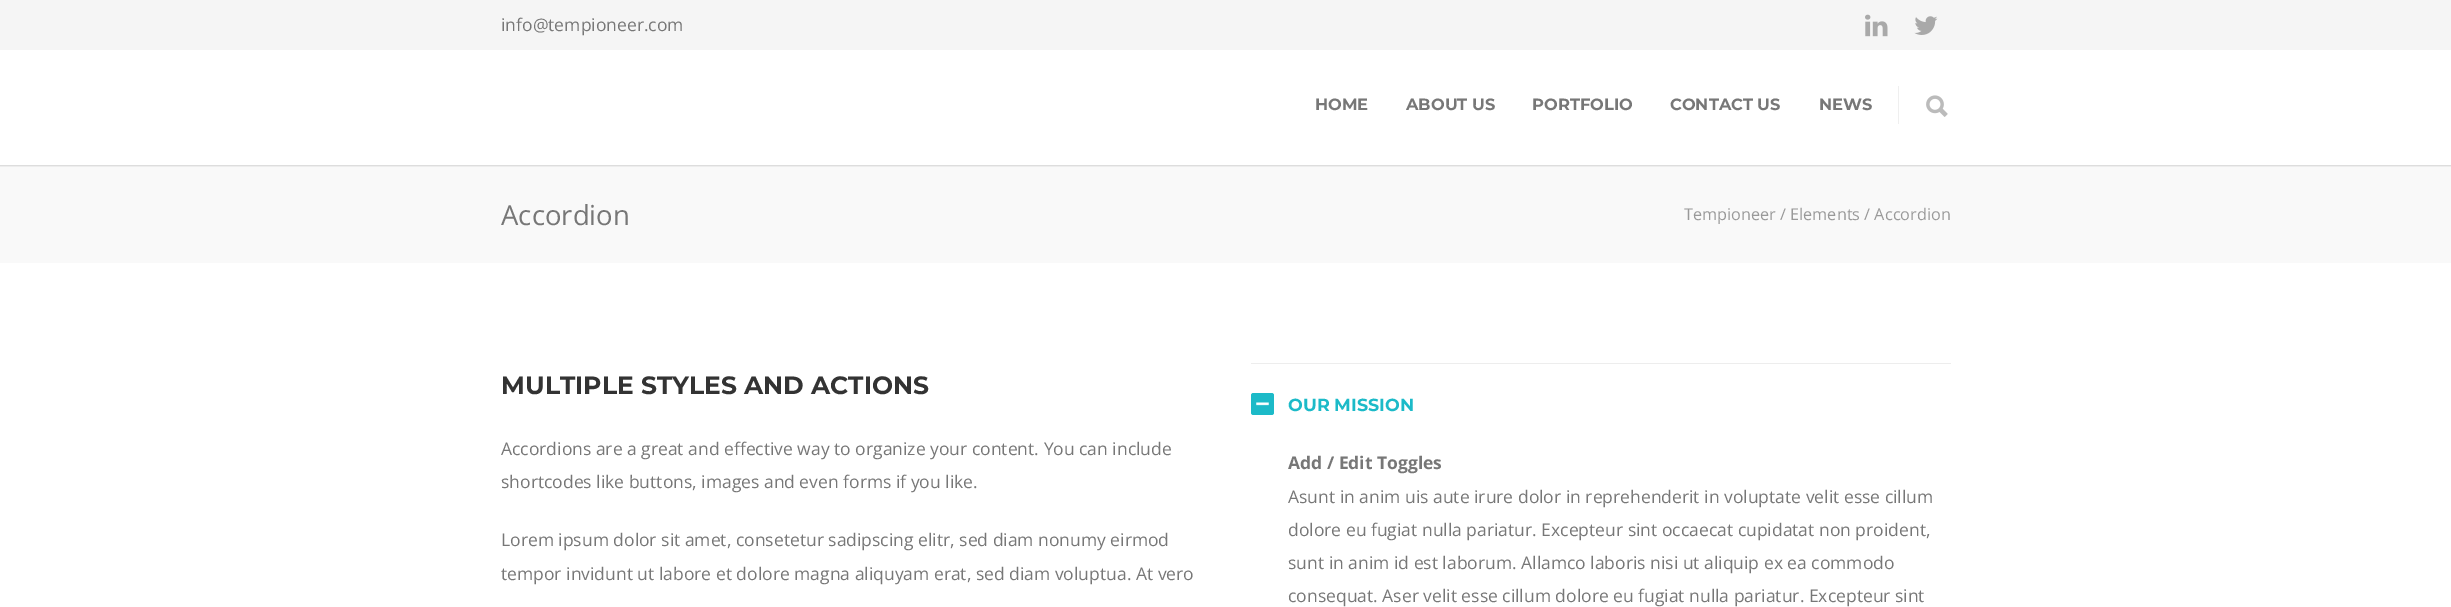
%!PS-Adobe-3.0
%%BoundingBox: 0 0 2451 607
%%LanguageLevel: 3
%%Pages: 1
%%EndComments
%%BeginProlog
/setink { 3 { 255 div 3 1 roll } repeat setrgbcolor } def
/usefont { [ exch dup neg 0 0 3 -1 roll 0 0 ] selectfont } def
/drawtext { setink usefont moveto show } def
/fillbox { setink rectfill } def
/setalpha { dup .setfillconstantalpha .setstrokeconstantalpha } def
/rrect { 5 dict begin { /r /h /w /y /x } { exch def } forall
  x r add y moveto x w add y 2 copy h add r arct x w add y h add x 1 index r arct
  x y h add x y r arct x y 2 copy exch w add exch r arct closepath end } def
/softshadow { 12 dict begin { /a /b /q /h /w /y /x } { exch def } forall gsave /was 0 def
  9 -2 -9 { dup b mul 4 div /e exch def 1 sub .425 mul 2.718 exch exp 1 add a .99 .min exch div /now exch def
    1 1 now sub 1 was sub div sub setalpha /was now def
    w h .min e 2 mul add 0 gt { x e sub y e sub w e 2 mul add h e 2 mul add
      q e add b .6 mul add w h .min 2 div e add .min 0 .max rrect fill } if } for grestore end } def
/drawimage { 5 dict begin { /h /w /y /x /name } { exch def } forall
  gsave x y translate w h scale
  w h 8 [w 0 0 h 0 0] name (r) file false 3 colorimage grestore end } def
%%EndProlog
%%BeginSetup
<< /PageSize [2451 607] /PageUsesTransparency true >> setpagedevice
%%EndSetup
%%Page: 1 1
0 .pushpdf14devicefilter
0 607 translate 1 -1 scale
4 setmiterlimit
0 0 2451 607 255 255 255 fillbox
0 165 2451 98 249 249 249 fillbox
gsave
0 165 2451 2 rectclip
0 0 0 setink
-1 49 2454 117 0 1 0.16 softshadow
grestore
0 0 2451 50 245 245 245 fillbox
(info@tempioneer.com) 501 31 /OpenSans-Regular 17.5 119 119 119 drawtext
(assets/img1.rgb) 1865 14 23 23 drawimage
(assets/img2.rgb) 1914 16 24 19 drawimage
(HOME) 1315 110 /Montserrat-Bold 16.25 119 119 119 drawtext
(ABOUT US) 1406 110 /Montserrat-Bold 16.25 119 119 119 drawtext
(PORTFOLIO) 1532 110 /Montserrat-Bold 16.25 119 119 119 drawtext
(CONTACT US) 1670 110 /Montserrat-Bold 16.25 119 119 119 drawtext
(NEWS) 1819 110 /Montserrat-Bold 16.25 119 119 119 drawtext
1898 86 1 38 239 239 239 fillbox
(assets/img3.rgb) 1926 95 22 22 drawimage
(Accordion) 501 225 /OpenSans-Regular 27.5 119 119 119 drawtext
(Tempioneer / Elements / Accordion) 1684 220 /OpenSans-Regular 16.25 153 153 153 drawtext
(MULTIPLE STYLES AND ACTIONS) 501 394 /Montserrat-Bold 25 51 51 51 drawtext
(Accordions are a great and effective way to organize your content. You can include) 501 455 /OpenSans-Regular 17.5 119 119 119 drawtext
(shortcodes like buttons, images and even forms if you like.) 501 488 /OpenSans-Regular 17.5 119 119 119 drawtext
(Lorem ipsum dolor sit amet, consetetur sadipscing elitr, sed diam nonumy eirmod) 501 546 /OpenSans-Regular 17.5 119 119 119 drawtext
(tempor invidunt ut labore et dolore magna aliquyam erat, sed diam voluptua. At vero) 501 580 /OpenSans-Regular 17.5 119 119 119 drawtext
1251 363 700 1 237 237 237 fillbox
28 186 200 setink
1251 393 23 22 2.5 rrect fill
(assets/img4.rgb) 1256 402 13 4 drawimage
(OUR MISSION) 1288 411 /Montserrat-Bold 17.5 28 186 200 drawtext
(Add / Edit Toggles) 1288 469 /OpenSans-Bold 17.5 119 119 119 drawtext
(Asunt in anim uis aute irure dolor in reprehenderit in voluptate velit esse cillum) 1288 503 /OpenSans-Regular 17.5 119 119 119 drawtext
(dolore eu fugiat nulla pariatur. Excepteur sint occaecat cupidatat non proident,) 1288 536 /OpenSans-Regular 17.5 119 119 119 drawtext
(sunt in anim id est laborum. Allamco laboris nisi ut aliquip ex ea commodo) 1288 569 /OpenSans-Regular 17.5 119 119 119 drawtext
(consequat. Aser velit esse cillum dolore eu fugiat nulla pariatur. Excepteur sint) 1288 602 /OpenSans-Regular 17.5 119 119 119 drawtext
.poppdf14devicefilter showpage
%%EOF
